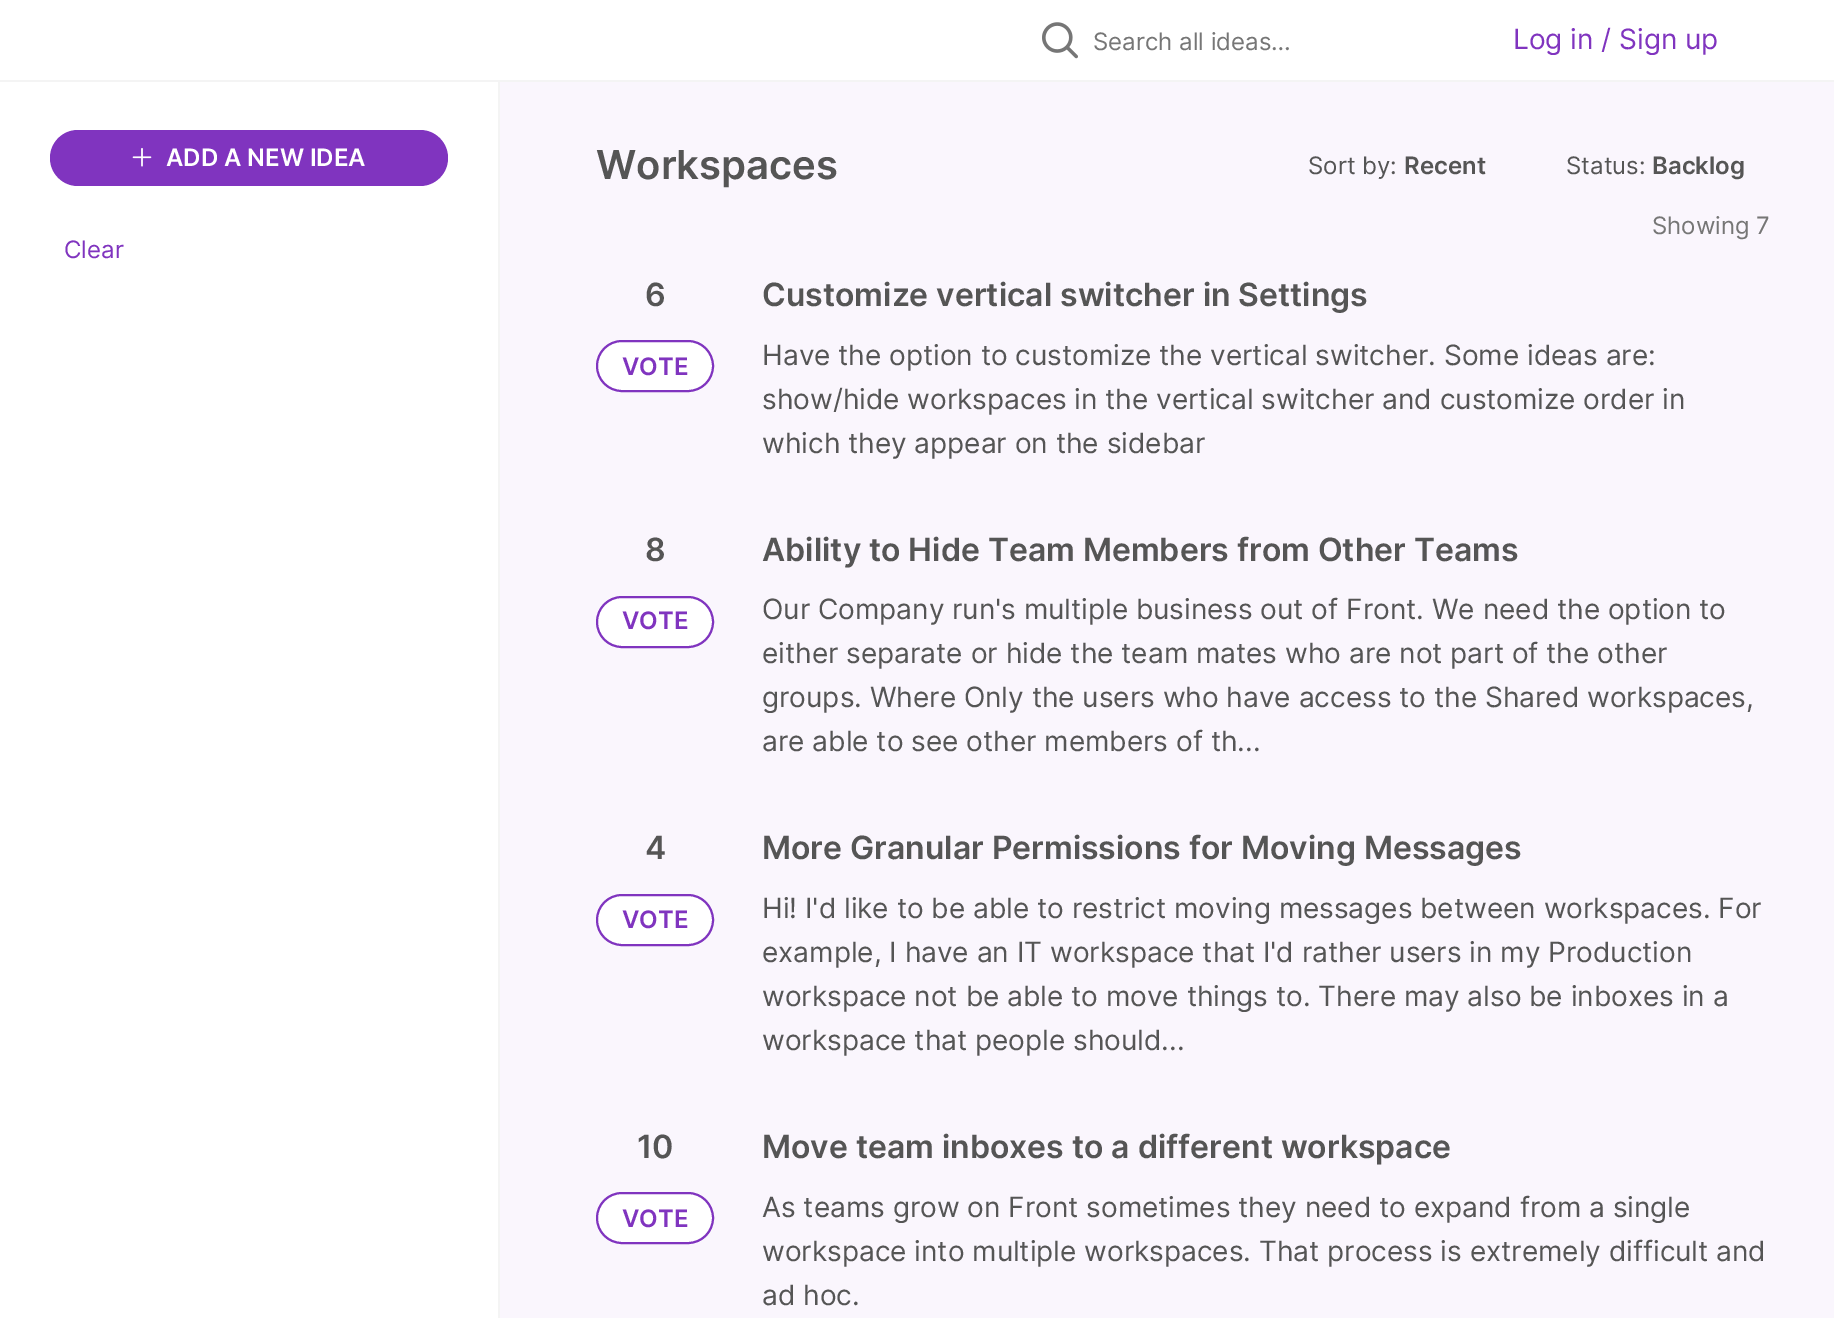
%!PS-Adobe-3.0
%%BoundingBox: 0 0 1834 1318
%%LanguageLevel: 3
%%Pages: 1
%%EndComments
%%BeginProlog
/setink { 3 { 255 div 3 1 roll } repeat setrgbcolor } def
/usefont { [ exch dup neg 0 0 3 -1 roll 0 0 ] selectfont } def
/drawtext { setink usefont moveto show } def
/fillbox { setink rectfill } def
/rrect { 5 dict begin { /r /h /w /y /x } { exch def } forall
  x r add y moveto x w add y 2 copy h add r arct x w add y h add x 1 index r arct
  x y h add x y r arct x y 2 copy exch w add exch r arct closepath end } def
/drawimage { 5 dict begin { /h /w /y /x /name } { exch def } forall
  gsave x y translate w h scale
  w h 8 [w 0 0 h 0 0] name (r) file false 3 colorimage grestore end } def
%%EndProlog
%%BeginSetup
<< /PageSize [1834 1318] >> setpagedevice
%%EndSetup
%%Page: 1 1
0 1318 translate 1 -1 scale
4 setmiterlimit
0 0 1834 1318 250 246 253 fillbox
0 0 1834 80 255 255 255 fillbox
0 80 1834 2 244 244 244 fillbox
(assets/img1.rgb) 1042 22 36 37 drawimage
(Search all ideas…) 1093 50 /Inter-Regular 24 118 118 118 drawtext
(Log in / Sign up) 1513 49 /Inter-Regular 28 128 52 191 drawtext
0 82 498 1236 255 255 255 fillbox
498 82 2 1236 244 244 244 fillbox
128 52 191 setink
50 130 398 56 28 rrect fill
(assets/img2.rgb) 132 148 20 19 drawimage
(ADD A NEW IDEA) 166 166 /Inter-SemiBold 24 255 255 255 drawtext
(Clear) 64 258 /Inter-Regular 24 128 52 191 drawtext
(Workspaces) 596 179 /Inter-SemiBold 40 85 85 85 drawtext
(Sort by:) 1308 174 /Inter-Regular 24 85 85 85 drawtext
(Recent) 1404 174 /Inter-SemiBold 24 85 85 85 drawtext
(Status:) 1566 174 /Inter-Regular 24 85 85 85 drawtext
(Backlog) 1652 174 /Inter-SemiBold 24 85 85 85 drawtext
(Showing 7) 1652 234 /Inter-Regular 24 118 118 118 drawtext
(6) 645 306 /Inter-SemiBold 32 85 85 85 drawtext
255 255 255 setink
597 341 116 50 25 rrect gsave fill grestore
128 52 191 setink
2 setlinewidth
stroke
(VOTE) 622 375 /Inter-SemiBold 24 128 52 191 drawtext
(Customize vertical switcher in Settings) 762 306 /Inter-SemiBold 32 85 85 85 drawtext
(Have the option to customize the vertical switcher. Some ideas are:) 762 365 /Inter-Regular 28 85 85 85 drawtext
(show/hide workspaces in the vertical switcher and customize order in) 762 409 /Inter-Regular 28 85 85 85 drawtext
(which they appear on the sidebar) 762 453 /Inter-Regular 28 85 85 85 drawtext
(8) 645 561 /Inter-SemiBold 32 85 85 85 drawtext
255 255 255 setink
597 597 116 50 25 rrect gsave fill grestore
128 52 191 setink
stroke
(VOTE) 622 629 /Inter-SemiBold 24 128 52 191 drawtext
(Ability to Hide Team Members from Other Teams) 762 561 /Inter-SemiBold 32 85 85 85 drawtext
(Our Company run's multiple business out of Front. We need the option to) 762 619 /Inter-Regular 28 85 85 85 drawtext
(either separate or hide the team mates who are not part of the other) 762 663 /Inter-Regular 28 85 85 85 drawtext
(groups. Where Only the users who have access to the Shared workspaces,) 762 707 /Inter-Regular 28 85 85 85 drawtext
(are able to see other members of th...) 762 751 /Inter-Regular 28 85 85 85 drawtext
(4) 645 859 /Inter-SemiBold 32 85 85 85 drawtext
255 255 255 setink
597 895 116 50 25 rrect gsave fill grestore
128 52 191 setink
stroke
(VOTE) 622 928 /Inter-SemiBold 24 128 52 191 drawtext
(More Granular Permissions for Moving Messages) 762 859 /Inter-SemiBold 32 85 85 85 drawtext
(Hi! I'd like to be able to restrict moving messages between workspaces. For) 762 918 /Inter-Regular 28 85 85 85 drawtext
(example, I have an IT workspace that I'd rather users in my Production) 762 962 /Inter-Regular 28 85 85 85 drawtext
(workspace not be able to move things to. There may also be inboxes in a) 762 1006 /Inter-Regular 28 85 85 85 drawtext
(workspace that people should...) 762 1050 /Inter-Regular 28 85 85 85 drawtext
(10) 637 1158 /Inter-SemiBold 32 85 85 85 drawtext
255 255 255 setink
597 1193 116 50 25 rrect gsave fill grestore
128 52 191 setink
stroke
(VOTE) 622 1227 /Inter-SemiBold 24 128 52 191 drawtext
(Move team inboxes to a different workspace) 762 1158 /Inter-SemiBold 32 85 85 85 drawtext
(As teams grow on Front sometimes they need to expand from a single) 762 1217 /Inter-Regular 28 85 85 85 drawtext
(workspace into multiple workspaces. That process is extremely difficult and) 762 1261 /Inter-Regular 28 85 85 85 drawtext
(ad hoc.) 762 1305 /Inter-Regular 28 85 85 85 drawtext
showpage
%%EOF
